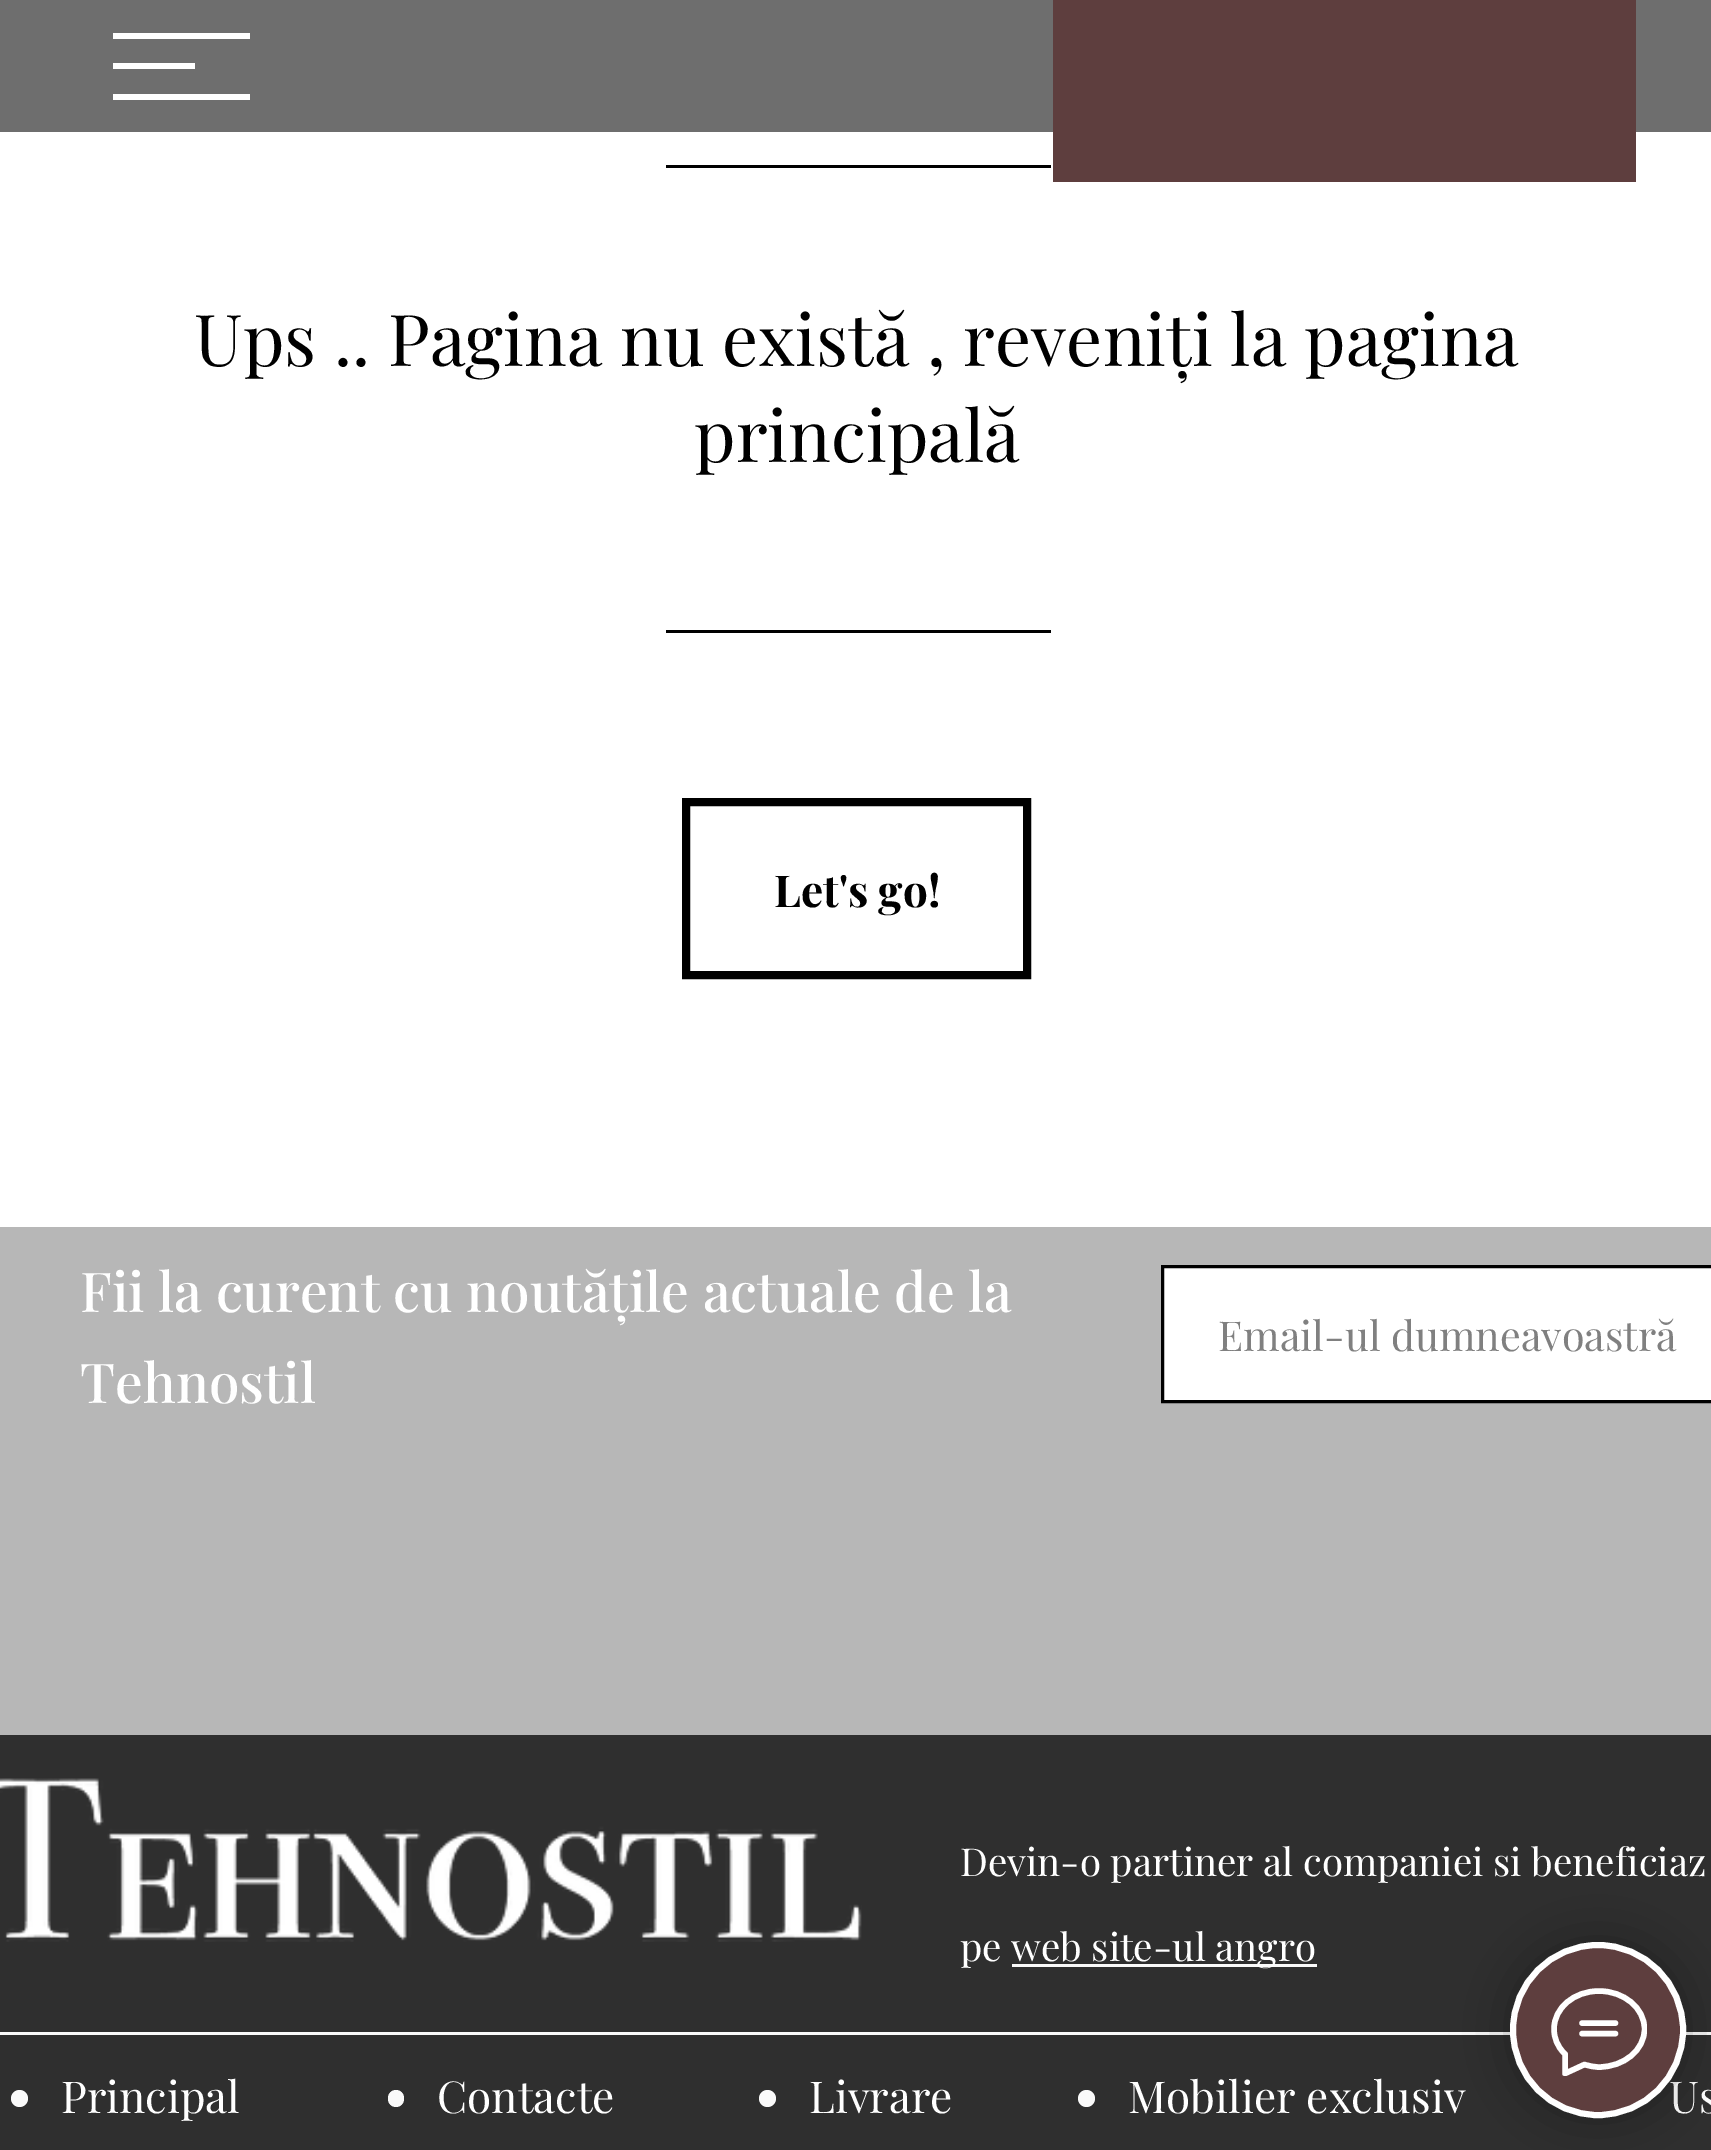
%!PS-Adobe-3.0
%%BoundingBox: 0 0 1711 2150
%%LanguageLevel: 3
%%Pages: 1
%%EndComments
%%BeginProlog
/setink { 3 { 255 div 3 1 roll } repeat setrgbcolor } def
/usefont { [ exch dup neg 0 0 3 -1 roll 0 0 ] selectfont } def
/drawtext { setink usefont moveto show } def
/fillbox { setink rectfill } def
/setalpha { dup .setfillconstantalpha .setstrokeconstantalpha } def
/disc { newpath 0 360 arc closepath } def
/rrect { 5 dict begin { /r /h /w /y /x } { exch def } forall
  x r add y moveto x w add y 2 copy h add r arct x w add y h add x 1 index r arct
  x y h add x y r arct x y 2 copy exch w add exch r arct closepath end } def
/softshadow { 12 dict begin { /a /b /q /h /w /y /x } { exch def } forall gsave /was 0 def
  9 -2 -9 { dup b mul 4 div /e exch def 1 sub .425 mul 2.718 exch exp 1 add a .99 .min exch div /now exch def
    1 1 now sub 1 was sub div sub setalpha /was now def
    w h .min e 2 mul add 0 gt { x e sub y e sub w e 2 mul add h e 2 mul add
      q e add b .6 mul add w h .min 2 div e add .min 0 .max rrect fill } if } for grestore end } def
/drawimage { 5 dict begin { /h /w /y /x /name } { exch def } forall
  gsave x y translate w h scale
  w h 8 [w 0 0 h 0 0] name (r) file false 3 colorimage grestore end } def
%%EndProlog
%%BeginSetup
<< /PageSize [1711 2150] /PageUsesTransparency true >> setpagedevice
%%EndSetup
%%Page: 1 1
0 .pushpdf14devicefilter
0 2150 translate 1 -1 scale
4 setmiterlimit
0 0 1711 2150 255 255 255 fillbox
0 0 1711 132 110 110 110 fillbox
113 33 137 6 255 255 255 fillbox
1053 0 583 182 94 62 62 fillbox
113 63 82 6 255 255 255 fillbox
113 94 137 6 255 255 255 fillbox
666 165 385 3 0 0 0 fillbox
(Ups .. Pagina nu există , reveniți la pagina) 194 366 /PlayfairDisplay-Regular 71.5 0 0 0 drawtext
(principală) 694 462 /PlayfairDisplay-Regular 71.5 0 0 0 drawtext
666 630 385 3 0 0 0 fillbox
8 setlinewidth
686 802 341 173 rectstroke
(Let's go!) 774 907 /PlayfairDisplay-Bold 44 0 0 0 drawtext
0 1227 1711 508 183 183 183 fillbox
(Fii la curent cu noutățile actuale de la) 80 1312 /PlayfairDisplay-Medium 55 255 255 255 drawtext
(Tehnostil) 80 1403 /PlayfairDisplay-Medium 55 255 255 255 drawtext
1162.5 1266.5 moveto 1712.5 1266.5 lineto 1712.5 1401.5 lineto 1162.5 1401.5 lineto closepath gsave fill grestore
0 0 0 setink
3 setlinewidth
stroke
(Email-ul dumneavoastră) 1218 1351 /PlayfairDisplay-Regular 41.25 128 128 128 drawtext
0 1735 1711 415 47 47 47 fillbox
(assets/img1.rgb) 0 1778 862 164 drawimage
(Devin-o partiner al companiei si beneficiaz) 960 1876 /PlayfairDisplay-Regular 38.5 255 255 255 drawtext
(pe) 960 1961 /PlayfairDisplay-Regular 38.5 255 255 255 drawtext
1012 1964 305 3 250 250 250 fillbox
(web site-ul angro) 1011 1961 /PlayfairDisplay-Regular 38.5 255 255 255 drawtext
0 2032 1711 3 250 250 250 fillbox
19.5 2098.5 8.5 disc fill
(Principal) 61 2113 /PlayfairDisplay-Regular 44 255 255 255 drawtext
250 250 250 setink
388 2090 16 17 8 rrect fill
(Contacte) 437 2113 /PlayfairDisplay-Regular 44 255 255 255 drawtext
250 250 250 setink
767.5 2098.5 8.5 disc fill
(Livrare) 809 2113 /PlayfairDisplay-Regular 44 255 255 255 drawtext
250 250 250 setink
1086.5 2098.5 8.5 disc fill
(Mobilier exclusiv) 1128 2113 /PlayfairDisplay-Regular 44 255 255 255 drawtext
(Us) 1669 2113 /PlayfairDisplay-Regular 44 255 255 255 drawtext
0 0 0 setink
1510 1942 176 176 88 27.5 0.3 softshadow
94 62 62 setink
1598 2030 85 disc gsave fill grestore
255 255 255 setink
6 setlinewidth
stroke
gsave
1551 1988 96 88 rectclip
5.5 setlinewidth
1 setlinecap
1 setlinejoin
1582 2023 moveto 1615.5 2023 lineto 1582 2033.5 moveto 1615.5 2033.5 lineto 1564 2053 moveto 1557.5 2046.5 1554 2038 1554 2029 curveto 1554 2008 1574 1991 1599 1991 curveto 1624 1991 1644.5 2008 1644.5 2029 curveto 1644.5 2050 1624 2067 1599 2067 curveto 1594 2067 1589 2066 1584.5 2064.5 curveto 1565 2073.5 lineto 1565 2054 lineto closepath stroke
grestore
.poppdf14devicefilter showpage
%%EOF
